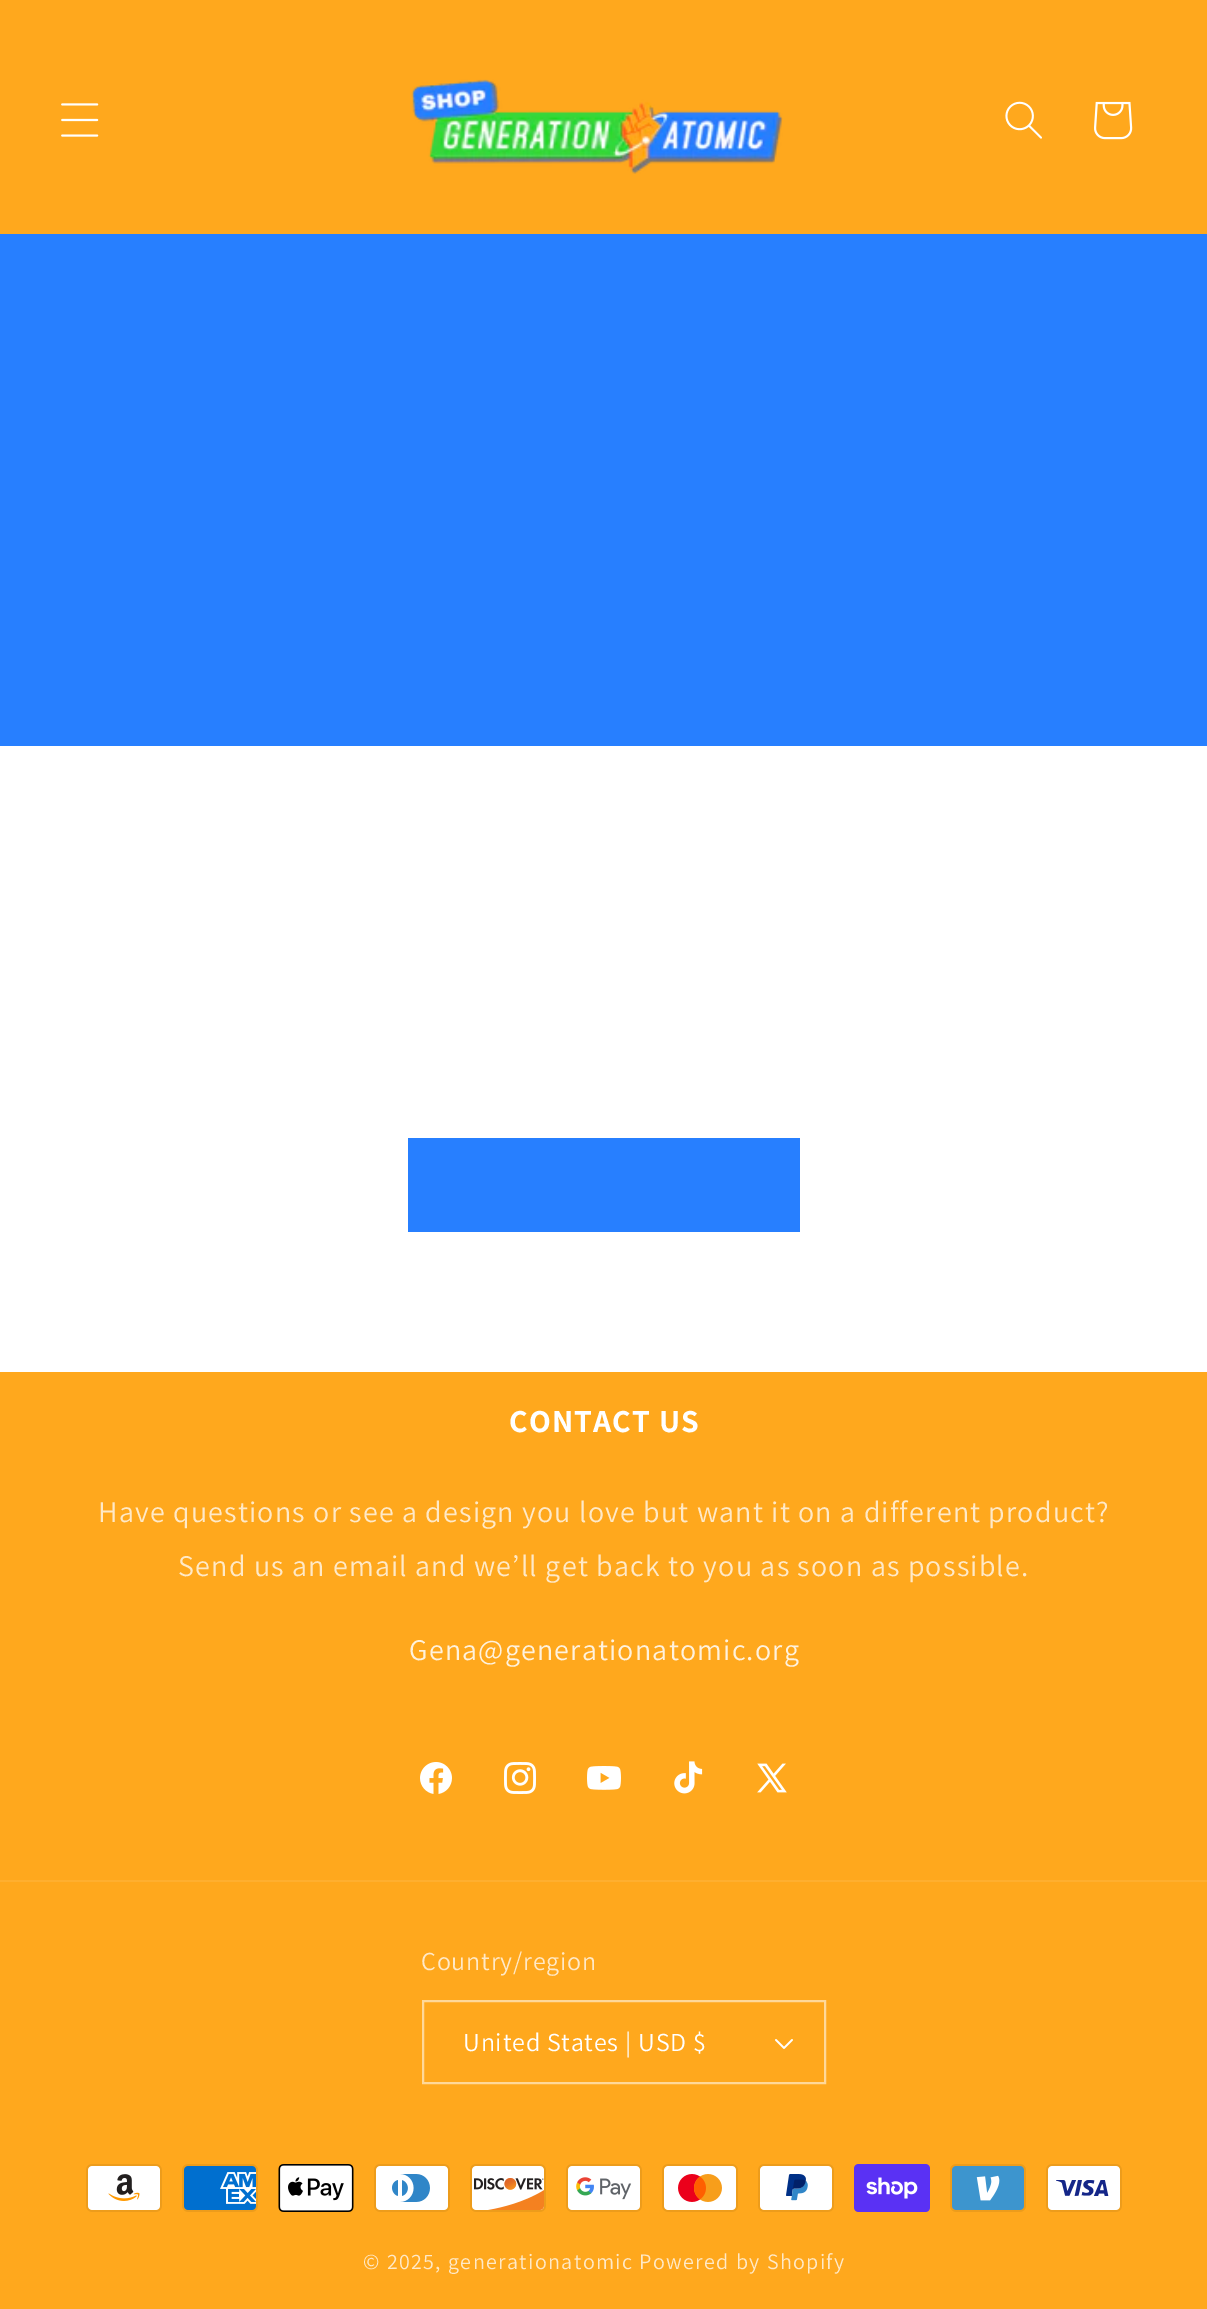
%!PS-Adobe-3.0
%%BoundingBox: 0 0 1207 2309
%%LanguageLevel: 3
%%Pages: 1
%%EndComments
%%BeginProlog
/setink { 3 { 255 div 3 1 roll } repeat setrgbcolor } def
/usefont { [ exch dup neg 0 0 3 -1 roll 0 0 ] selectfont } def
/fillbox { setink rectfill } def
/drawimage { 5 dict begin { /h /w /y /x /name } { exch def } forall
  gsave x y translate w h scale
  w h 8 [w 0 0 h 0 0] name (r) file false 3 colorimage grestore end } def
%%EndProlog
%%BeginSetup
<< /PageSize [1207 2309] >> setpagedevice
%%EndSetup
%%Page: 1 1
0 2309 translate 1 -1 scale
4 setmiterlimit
0 0 1207 2309 255 255 255 fillbox
0 0 1207 234 255 168 29 fillbox
(assets/img1.rgb) 61 103 38 34 drawimage
(assets/img2.rgb) 411 79 372 95 drawimage
(assets/img3.rgb) 1005 101 37 38 drawimage
(assets/img4.rgb) 1094 101 39 39 drawimage
0 234 1207 512 39 127 255 fillbox
408 1138 392 94 39 127 255 fillbox
0 1372 1207 937 255 168 29 fillbox
/Assistant-Bold 32 usefont
255 255 255 setink
509 1432 moveto 1.2 0 (CONTACT US) ashow
/Assistant-Regular 30 usefont
255 233 199 setink
98 1522 moveto 1.2 0 (Have questions or see a design you love but want it on a different product?) ashow
178 1576 moveto 1.2 0 (Send us an email and we’ll get back to you as soon as possible.) ashow
255 242 221 setink
409 1660 moveto 1.2 0 (Gena@generationatomic.org) ashow
(assets/img5.rgb) 420 1762 32 32 drawimage
(assets/img6.rgb) 504 1762 32 32 drawimage
(assets/img7.rgb) 587 1766 34 24 drawimage
(assets/img8.rgb) 674 1761 29 33 drawimage
(assets/img9.rgb) 757 1763 30 30 drawimage
0 1880 1207 2 255 175 47 fillbox
/Assistant-Regular 26 usefont
255 233 199 setink
421 1970 moveto 0.8 0 (Country/region) ashow
(assets/img10.rgb) 775 2039 18 10 drawimage
255 216 153 setink
2 setlinewidth
423 2001 402 82 rectstroke
255 255 255 setink
463 2051 moveto 0.8 0 (United States | USD $) ashow
(assets/img11.rgb) 86 2164 76 48 drawimage
(assets/img12.rgb) 182 2164 76 48 drawimage
(assets/img13.rgb) 278 2164 76 48 drawimage
(assets/img14.rgb) 374 2164 76 48 drawimage
(assets/img15.rgb) 470 2164 76 48 drawimage
(assets/img16.rgb) 566 2164 76 48 drawimage
(assets/img17.rgb) 662 2164 76 48 drawimage
(assets/img18.rgb) 758 2164 76 48 drawimage
(assets/img19.rgb) 854 2164 76 48 drawimage
(assets/img20.rgb) 950 2164 76 48 drawimage
(assets/img21.rgb) 1046 2164 76 48 drawimage
/Assistant-Regular 22 usefont
255 233 199 setink
363 2269 moveto 1.4 0 (© 2025, generationatomic) ashow
639 2269 moveto 1.4 0 (Powered by Shopify) ashow
showpage
%%EOF
